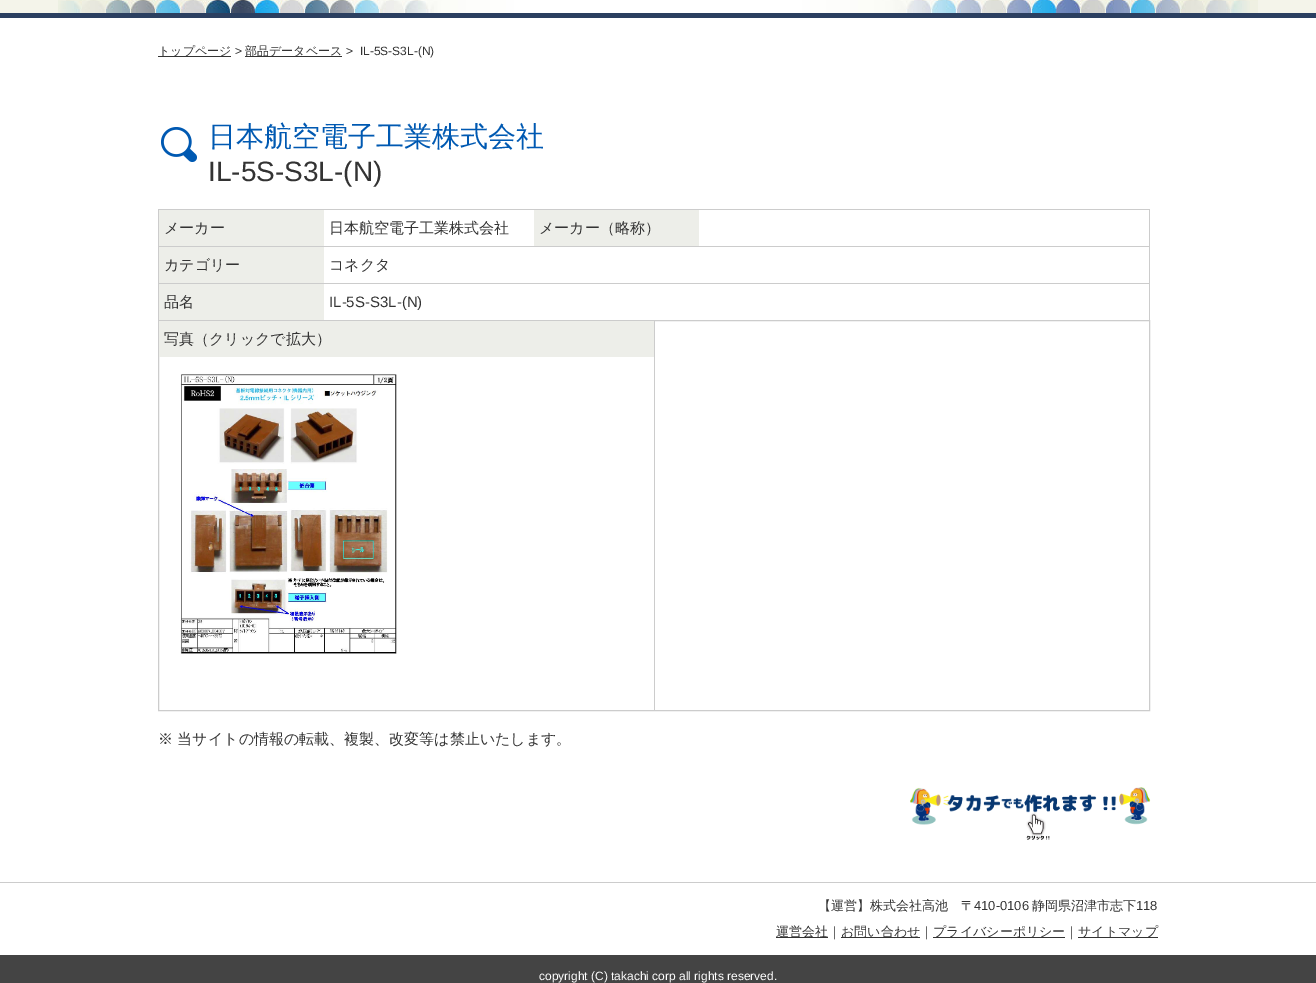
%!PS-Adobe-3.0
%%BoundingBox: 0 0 1316 983
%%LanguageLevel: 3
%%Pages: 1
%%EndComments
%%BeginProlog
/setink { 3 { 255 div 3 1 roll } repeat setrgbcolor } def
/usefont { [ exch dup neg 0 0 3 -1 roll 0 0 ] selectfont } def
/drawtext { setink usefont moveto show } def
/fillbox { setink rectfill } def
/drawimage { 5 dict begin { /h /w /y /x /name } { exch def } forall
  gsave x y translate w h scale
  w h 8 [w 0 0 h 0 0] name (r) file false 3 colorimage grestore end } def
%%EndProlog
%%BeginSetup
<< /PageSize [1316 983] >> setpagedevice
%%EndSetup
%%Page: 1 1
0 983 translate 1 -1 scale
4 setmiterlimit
0 0 1316 983 255 255 255 fillbox
0 0 1316 13 244 244 234 fillbox
(assets/img1.rgb) 58 0 1200 13 drawimage
0 13 1316 5 43 63 96 fillbox
158 56 73 1 51 51 51 fillbox
(トップページ) 158 55 /WenQuanYiZenHei-Medium 12 51 51 51 drawtext
(>) 235 55 /LiberationSans-Regular 12 51 51 51 drawtext
245 56 97 1 51 51 51 fillbox
(部品データベース) 245 55 /WenQuanYiZenHei-Medium 12 51 51 51 drawtext
(>  IL-5S-S3L-\(N\)) 346 55 /LiberationSans-Regular 12 51 51 51 drawtext
(assets/img2.rgb) 161 127 36 35 drawimage
(日本航空電子工業株式会社) 208 146 /WenQuanYiZenHei-Medium 28 0 89 178 drawtext
(IL-5S-S3L-\(N\)) 208 181 /LiberationSans-Regular 28 51 51 51 drawtext
158 209 992 1 204 204 204 fillbox
1149 209 1 37 204 204 204 fillbox
158 209 1 37 204 204 204 fillbox
159 210 165 36 237 238 233 fillbox
(メーカー) 164 233 /WenQuanYiZenHei-Medium 15 51 51 51 drawtext
(日本航空電子工業株式会社) 329 233 /WenQuanYiZenHei-Medium 15 51 51 51 drawtext
534 210 165 36 237 238 233 fillbox
(メーカー（略称）) 539 233 /WenQuanYiZenHei-Medium 15 51 51 51 drawtext
158 246 992 1 204 204 204 fillbox
1149 246 1 37 204 204 204 fillbox
158 246 1 37 204 204 204 fillbox
159 247 165 36 237 238 233 fillbox
(カテゴリー) 164 270 /WenQuanYiZenHei-Medium 15 51 51 51 drawtext
(コネクタ) 329 270 /WenQuanYiZenHei-Medium 15 51 51 51 drawtext
158 283 992 1 204 204 204 fillbox
1149 283 1 37 204 204 204 fillbox
158 283 1 37 204 204 204 fillbox
159 284 165 36 237 238 233 fillbox
(品名) 164 307 /WenQuanYiZenHei-Medium 15 51 51 51 drawtext
(IL-5S-S3L-\(N\)) 329 307 /LiberationSans-Regular 15 51 51 51 drawtext
204 204 204 setink
158.5 320.5 991 390 rectstroke
159 321 495 36 237 238 233 fillbox
(写真（クリックで拡大）) 164 344 /WenQuanYiZenHei-Medium 15 51 51 51 drawtext
(assets/img3.rgb) 180 374 217 280 drawimage
654 321 1 389 204 204 204 fillbox
(※ 当サイトの情報の転載、複製、改変等は禁止いたします。) 158 744 /WenQuanYiZenHei-Medium 15 51 51 51 drawtext
(assets/img4.rgb) 910 787 241 53 drawimage
0 882 1316 1 204 204 204 fillbox
(【運営】株式会社高池　〒) 818 910 /WenQuanYiZenHei-Medium 13 51 51 51 drawtext
(410-0106) 974 910 /LiberationSans-Regular 13 51 51 51 drawtext
(静岡県沼津市志下) 1032 910 /WenQuanYiZenHei-Medium 13 51 51 51 drawtext
(118) 1136 910 /LiberationSans-Regular 13 51 51 51 drawtext
776 937 52 1 51 51 51 fillbox
(運営会社｜) 776 936 /WenQuanYiZenHei-Medium 13 51 51 51 drawtext
841 937 79 1 51 51 51 fillbox
(お問い合わせ｜) 841 936 /WenQuanYiZenHei-Medium 13 51 51 51 drawtext
933 937 132 1 51 51 51 fillbox
(プライバシーポリシー｜) 933 936 /WenQuanYiZenHei-Medium 13 51 51 51 drawtext
1078 937 80 1 51 51 51 fillbox
(サイトマップ) 1078 936 /WenQuanYiZenHei-Medium 13 51 51 51 drawtext
0 955 1316 28 68 68 68 fillbox
(copyright \(C\) takachi corp all rights reserved.) 539 980 /LiberationSans-Regular 12 255 255 255 drawtext
showpage
%%EOF
